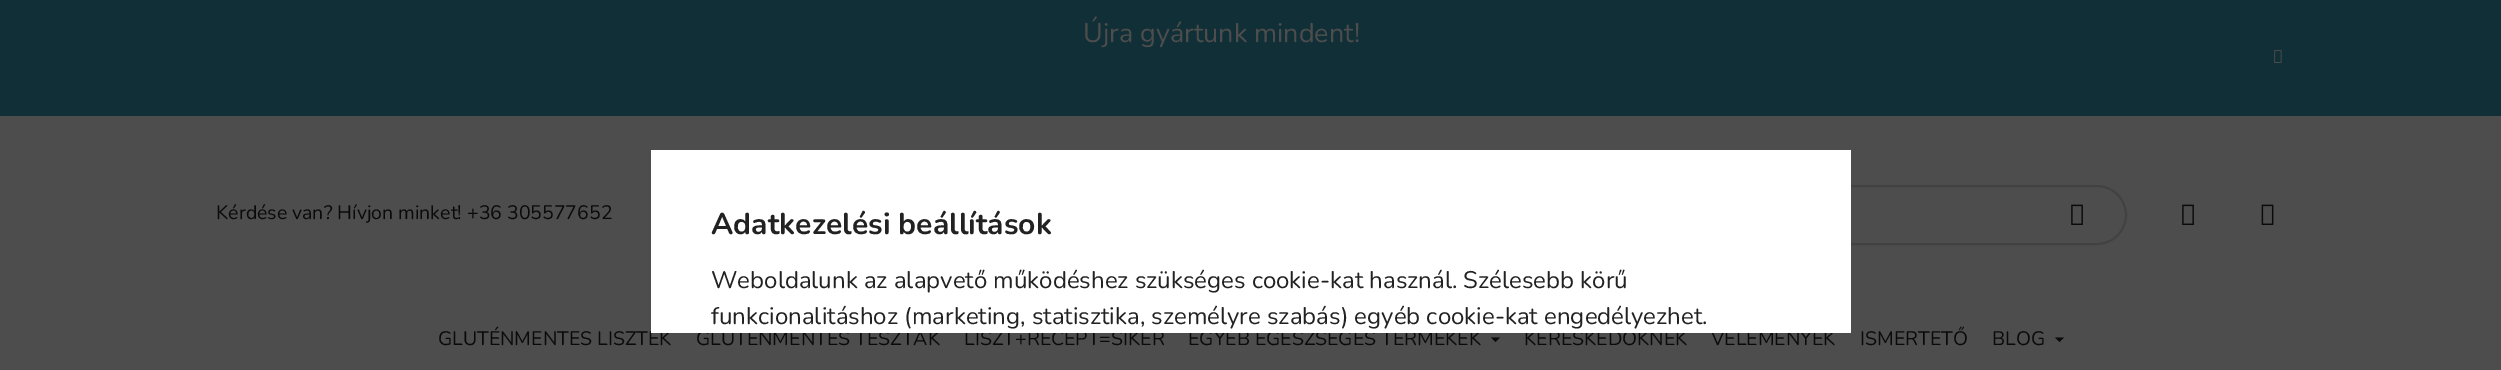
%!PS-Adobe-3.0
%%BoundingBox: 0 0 2501 370
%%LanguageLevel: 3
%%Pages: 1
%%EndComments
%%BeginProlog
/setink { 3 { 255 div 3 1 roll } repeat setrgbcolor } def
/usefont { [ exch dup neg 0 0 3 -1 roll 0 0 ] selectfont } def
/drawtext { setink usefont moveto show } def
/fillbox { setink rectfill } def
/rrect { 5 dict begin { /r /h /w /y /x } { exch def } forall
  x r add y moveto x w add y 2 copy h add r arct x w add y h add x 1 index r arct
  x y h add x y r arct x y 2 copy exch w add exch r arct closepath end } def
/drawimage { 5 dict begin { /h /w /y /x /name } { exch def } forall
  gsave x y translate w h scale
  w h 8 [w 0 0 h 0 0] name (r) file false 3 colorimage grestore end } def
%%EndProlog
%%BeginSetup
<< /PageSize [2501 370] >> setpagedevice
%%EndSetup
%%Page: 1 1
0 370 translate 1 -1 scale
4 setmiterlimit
0 0 2501 370 77 77 77 fillbox
0 0 2501 116 17 47 55 fillbox
(Újra gyártunk mindent!) 1083 42 /Nunito-Regular 27 77 77 77 drawtext
(assets/img1.rgb) 2274 50 8 13 drawimage
(Kérdése van? Hívjon minket! +36 305577652) 216 219 /Nunito-Regular 19.5 10 10 10 drawtext
66 66 66 setink
2 setlinewidth
1678 186 448 58 29 rrect stroke
(assets/img2.rgb) 2071 204 12 21 drawimage
(assets/img2.rgb) 2182 204 12 21 drawimage
(assets/img3.rgb) 2261 204 13 21 drawimage
(GLUTÉNMENTES LISZTEK) 438 345 /Nunito-Regular 19.5 10 10 10 drawtext
(GLUTÉNMENTES TÉSZTÁK) 696 345 /Nunito-Regular 19.5 10 10 10 drawtext
(LISZT+RECEPT=SIKER) 964 345 /Nunito-Regular 19.5 10 10 10 drawtext
(EGYÉB EGÉSZSÉGES TERMÉKEK) 1188 345 /Nunito-Regular 19.5 10 10 10 drawtext
1491 337.5 moveto 1500 337.5 lineto 1495.5 342 lineto closepath fill
(KERESKEDŐKNEK) 1524 345 /Nunito-Regular 19.5 10 10 10 drawtext
(VÉLEMÉNYEK) 1711 345 /Nunito-Regular 19.5 10 10 10 drawtext
(ISMERTETŐ) 1860 345 /Nunito-Regular 19.5 10 10 10 drawtext
(BLOG) 1992 345 /Nunito-Regular 19.5 10 10 10 drawtext
2055 337.5 moveto 2064 337.5 lineto 2059.5 342 lineto closepath fill
651 150 1200 183 255 255 255 fillbox
(Adatkezelési beállítások) 711 234 /Nunito-Bold 30 34 34 34 drawtext
(Weboldalunk az alapvető működéshez szükséges cookie-kat használ. Szélesebb körű) 711 288 /Nunito-Regular 24 34 34 34 drawtext
(funkcionalitáshoz \(marketing, statisztika, személyre szabás\) egyéb cookie-kat engedélyezhet.) 711 324 /Nunito-Regular 24 34 34 34 drawtext
showpage
%%EOF
